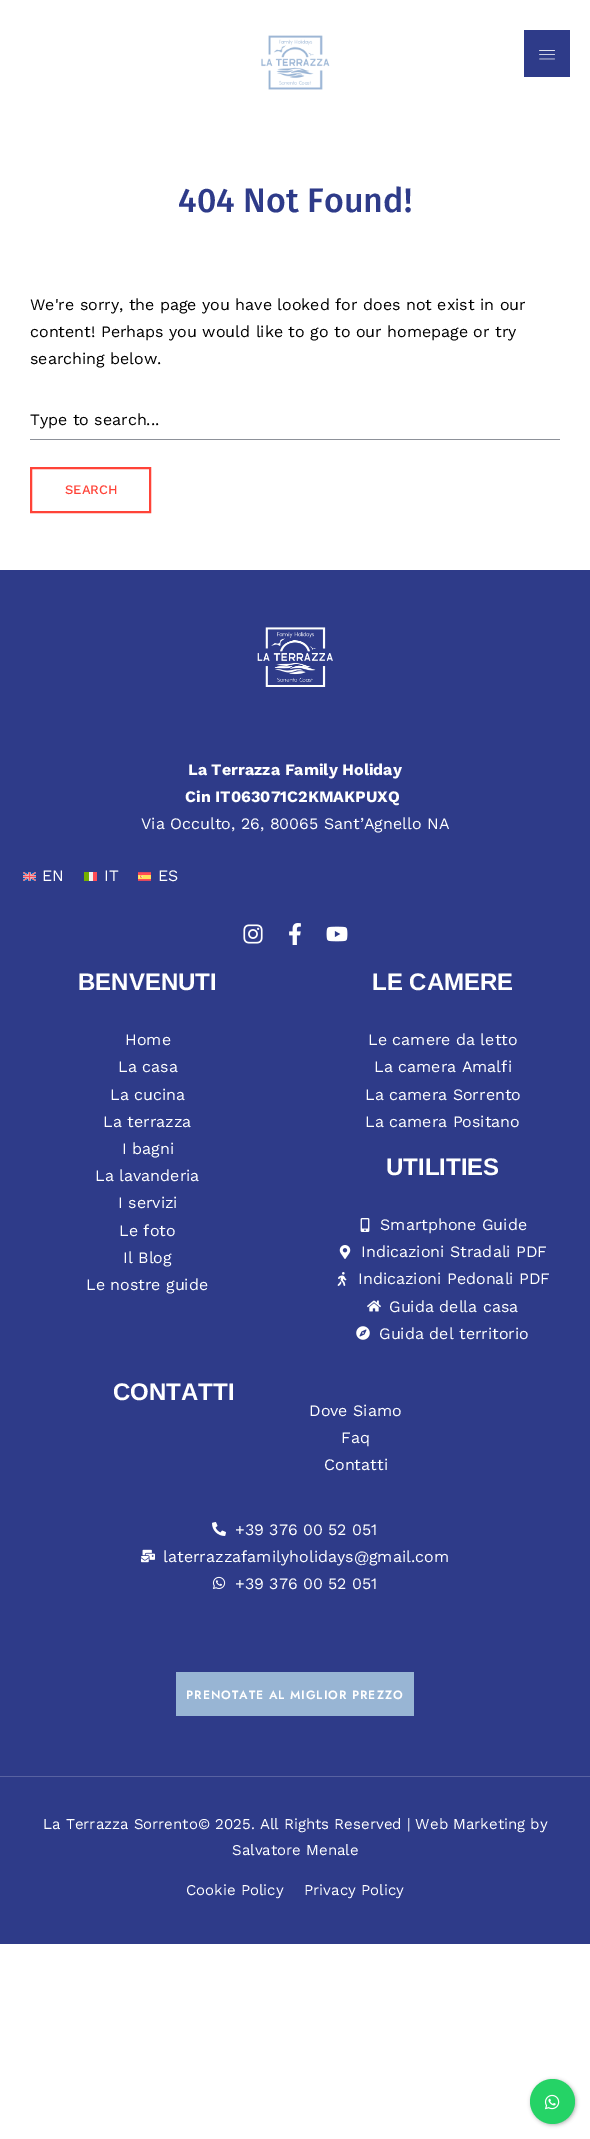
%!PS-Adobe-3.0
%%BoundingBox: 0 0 590 2139
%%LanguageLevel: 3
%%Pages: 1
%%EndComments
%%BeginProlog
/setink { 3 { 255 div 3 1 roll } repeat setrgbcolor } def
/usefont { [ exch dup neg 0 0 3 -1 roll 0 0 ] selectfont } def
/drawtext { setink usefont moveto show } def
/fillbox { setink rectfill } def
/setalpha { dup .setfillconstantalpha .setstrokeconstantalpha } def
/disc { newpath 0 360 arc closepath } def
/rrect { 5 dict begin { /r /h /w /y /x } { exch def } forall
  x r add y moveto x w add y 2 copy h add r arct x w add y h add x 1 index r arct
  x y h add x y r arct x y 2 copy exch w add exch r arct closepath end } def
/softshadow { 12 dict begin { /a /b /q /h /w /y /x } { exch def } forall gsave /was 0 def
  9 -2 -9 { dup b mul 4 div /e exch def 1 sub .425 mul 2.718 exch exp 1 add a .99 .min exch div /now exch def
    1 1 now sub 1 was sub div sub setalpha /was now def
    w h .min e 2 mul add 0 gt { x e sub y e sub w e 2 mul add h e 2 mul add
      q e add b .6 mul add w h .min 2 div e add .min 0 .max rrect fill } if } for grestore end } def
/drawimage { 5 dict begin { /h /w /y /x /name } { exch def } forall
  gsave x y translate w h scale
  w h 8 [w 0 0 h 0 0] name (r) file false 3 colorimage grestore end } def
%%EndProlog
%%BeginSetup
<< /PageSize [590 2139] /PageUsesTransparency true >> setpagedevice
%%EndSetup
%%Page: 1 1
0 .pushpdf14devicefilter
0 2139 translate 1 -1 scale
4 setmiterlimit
0 0 590 2139 255 255 255 fillbox
(assets/img1.rgb) 261 35 69 55 drawimage
524 30 46 47 46 59 137 fillbox
(assets/img2.rgb) 539 50 16 10 drawimage
(404 Not Found!) 178 212 /FiraSans-Medium 34 46 59 137 drawtext
(We're sorry, the page you have looked for does not exist in our) 30 310 /WorkSans-Regular 16 0 0 0 drawtext
(content! Perhaps you would like to go to our homepage or try) 30 337 /WorkSans-Regular 16 0 0 0 drawtext
(searching below.) 30 364 /WorkSans-Regular 16 0 0 0 drawtext
30 439 530 1 141 145 153 fillbox
(Type to search...) 30 425 /WorkSans-Regular 16 0 0 0 drawtext
255 67 56 setink
2 setlinewidth
31 468 119 44 rectstroke
(SEARCH) 65 494 /WorkSans-Medium 13 255 67 56 drawtext
0 570 590 1206 46 59 137 fillbox
(assets/img3.rgb) 257 627 76 60 drawimage
(La Terrazza Family Holiday) 188 775 /WorkSans-Bold 16 255 255 255 drawtext
(Cin IT063071C2KMAKPUXQ) 185 802 /WorkSans-Bold 16 255 255 255 drawtext
(Via Occulto, 26, 80065 Sant’Agnello NA) 141 829 /WorkSans-Regular 16 255 255 255 drawtext
(assets/img4.rgb) 23 872 13 9 drawimage
(EN) 42 881 /WorkSans-Regular 16 255 255 255 drawtext
84 872 5 9 115 175 0 fillbox
89 872 4 9 240 240 240 fillbox
93 872 4 9 255 75 85 fillbox
(IT) 104 881 /WorkSans-Regular 16 255 255 255 drawtext
(assets/img5.rgb) 138 872 13 9 drawimage
(ES) 158 881 /WorkSans-Regular 16 255 255 255 drawtext
(assets/img6.rgb) 243 924 20 20 drawimage
(assets/img7.rgb) 289 923 12 22 drawimage
(assets/img8.rgb) 326 926 22 16 drawimage
(BENVENUTI) 78 990 /LiberationSans-Bold 24 255 255 255 drawtext
(Home) 125 1045 /WorkSans-Regular 16 255 255 255 drawtext
(La casa) 118 1072 /WorkSans-Regular 16 255 255 255 drawtext
(La cucina) 110 1100 /WorkSans-Regular 16 255 255 255 drawtext
(La terrazza) 103 1127 /WorkSans-Regular 16 255 255 255 drawtext
(I bagni) 122 1154 /WorkSans-Regular 16 255 255 255 drawtext
(La lavanderia) 95 1181 /WorkSans-Regular 16 255 255 255 drawtext
(I servizi) 118 1208 /WorkSans-Regular 16 255 255 255 drawtext
(Le foto) 119 1236 /WorkSans-Regular 16 255 255 255 drawtext
(Il Blog) 123 1263 /WorkSans-Regular 16 255 255 255 drawtext
(Le nostre guide) 86 1290 /WorkSans-Regular 16 255 255 255 drawtext
(LE CAMERE) 372 990 /LiberationSans-Bold 24 255 255 255 drawtext
(Le camere da letto) 368 1045 /WorkSans-Regular 16 255 255 255 drawtext
(La camera Amalfi) 374 1072 /WorkSans-Regular 16 255 255 255 drawtext
(La camera Sorrento) 365 1100 /WorkSans-Regular 16 255 255 255 drawtext
(La camera Positano) 365 1127 /WorkSans-Regular 16 255 255 255 drawtext
(UTILITIES) 386 1175 /LiberationSans-Bold 24 255 255 255 drawtext
(assets/img9.rgb) 360 1218 10 14 drawimage
(Smartphone Guide) 380 1230 /WorkSans-Regular 16 255 255 255 drawtext
(assets/img10.rgb) 339 1245 12 14 drawimage
(Indicazioni Stradali PDF) 361 1257 /WorkSans-Regular 16 255 255 255 drawtext
(assets/img11.rgb) 337 1272 10 14 drawimage
(Indicazioni Pedonali PDF) 358 1284 /WorkSans-Regular 16 255 255 255 drawtext
(assets/img12.rgb) 367 1300 14 12 drawimage
(Guida della casa) 389 1312 /WorkSans-Regular 16 255 255 255 drawtext
(assets/img13.rgb) 356 1326 14 14 drawimage
(Guida del territorio) 379 1339 /WorkSans-Regular 16 255 255 255 drawtext
(CONTATTI) 113 1400 /LiberationSans-Bold 24 255 255 255 drawtext
(Dove Siamo) 309 1416 /WorkSans-Regular 16 255 255 255 drawtext
(Faq) 341 1443 /WorkSans-Regular 16 255 255 255 drawtext
(Contatti) 324 1470 /WorkSans-Regular 16 255 255 255 drawtext
(assets/img14.rgb) 212 1522 14 14 drawimage
(+39 376 00 52 051) 235 1535 /WorkSans-Regular 16 255 255 255 drawtext
(assets/img15.rgb) 141 1549 14 14 drawimage
(laterrazzafamilyholidays@gmail.com) 163 1562 /WorkSans-Regular 16 255 255 255 drawtext
(assets/img16.rgb) 212 1576 14 13 drawimage
(+39 376 00 52 051) 235 1589 /WorkSans-Regular 16 255 255 255 drawtext
176 1672 238 44 152 181 212 fillbox
/Jost-SemiBold 12 usefont
255 255 255 setink
186 1699 moveto 1 0 (PRENOTATE AL MIGLIOR PREZZO) ashow
0 1777 590 167 46 59 137 fillbox
0 1776 590 1 88 98 161 fillbox
(La Terrazza Sorrento© 2025. All Rights Reserved | Web Marketing by) 43 1829 /WorkSans-Regular 15 255 255 255 drawtext
(Salvatore Menale) 232 1855 /WorkSans-Regular 15 255 255 255 drawtext
(Cookie Policy) 186 1895 /WorkSans-Regular 15 255 255 255 drawtext
(Privacy Policy) 304 1895 /WorkSans-Regular 15 255 255 255 drawtext
0 0 0 setink
531 2080 45 45 22.5 2 0.3 softshadow
37 211 102 setink
552.5 2101.5 22.5 disc fill
(assets/img17.rgb) 544 2094 16 16 drawimage
.poppdf14devicefilter showpage
%%EOF
